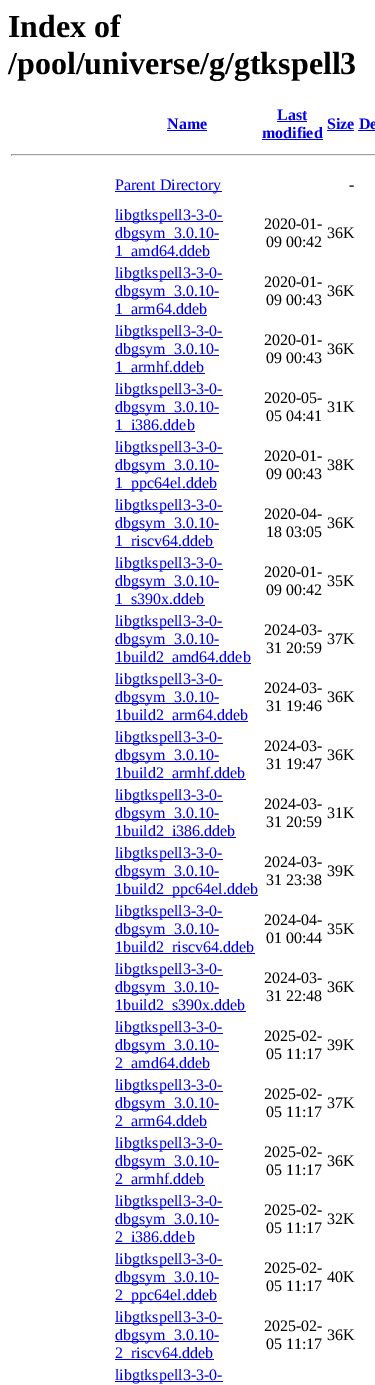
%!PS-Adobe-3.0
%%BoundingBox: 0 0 375 1385
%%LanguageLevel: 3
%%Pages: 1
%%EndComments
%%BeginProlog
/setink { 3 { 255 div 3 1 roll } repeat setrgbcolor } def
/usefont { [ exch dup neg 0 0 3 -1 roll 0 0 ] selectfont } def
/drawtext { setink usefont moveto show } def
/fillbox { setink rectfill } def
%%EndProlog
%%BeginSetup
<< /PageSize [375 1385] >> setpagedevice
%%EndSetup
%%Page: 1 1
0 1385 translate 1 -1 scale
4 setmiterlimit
0 0 375 1385 255 255 255 fillbox
(Index of) 8 37 /LiberationSerif-Bold 32 0 0 0 drawtext
(/pool/universe/g/gtkspell3) 8 74 /LiberationSerif-Bold 32 0 0 0 drawtext
(Name) 167 129 /LiberationSerif-Bold 16 0 0 238 drawtext
167 130 40 1 0 0 238 fillbox
(Last) 277 120 /LiberationSerif-Bold 16 0 0 238 drawtext
277 121 30 1 0 0 238 fillbox
(modified) 262 138 /LiberationSerif-Bold 16 0 0 238 drawtext
262 139 61 1 0 0 238 fillbox
(Size De) 327 129 /LiberationSerif-Bold 16 0 0 238 drawtext
327 130 27 1 0 0 238 fillbox
358 130 17 1 0 0 238 fillbox
11 154 364 1 159 159 159 fillbox
11 155 364 1 238 238 238 fillbox
11 154 1 2 159 159 159 fillbox
115 191 107 1 0 0 238 fillbox
(Parent Directory) 115 190 /LiberationSerif-Regular 16 0 0 238 drawtext
(-) 349 190 /LiberationSerif-Regular 16 0 0 0 drawtext
115 221 108 1 0 0 238 fillbox
(libgtkspell3-3-0-) 115 220 /LiberationSerif-Regular 16 0 0 238 drawtext
115 239 104 1 0 0 238 fillbox
(dbgsym_3.0.10-) 115 238 /LiberationSerif-Regular 16 0 0 238 drawtext
115 257 95 1 0 0 238 fillbox
(1_amd64.ddeb) 115 256 /LiberationSerif-Regular 16 0 0 238 drawtext
(2020-01-) 264 229 /LiberationSerif-Regular 16 0 0 0 drawtext
(09 00:42) 266 247 /LiberationSerif-Regular 16 0 0 0 drawtext
(36K) 327 238 /LiberationSerif-Regular 16 0 0 0 drawtext
115 279 108 1 0 0 238 fillbox
(libgtkspell3-3-0-) 115 278 /LiberationSerif-Regular 16 0 0 238 drawtext
115 297 104 1 0 0 238 fillbox
(dbgsym_3.0.10-) 115 296 /LiberationSerif-Regular 16 0 0 238 drawtext
115 315 92 1 0 0 238 fillbox
(1_arm64.ddeb) 115 314 /LiberationSerif-Regular 16 0 0 238 drawtext
(2020-01-) 264 287 /LiberationSerif-Regular 16 0 0 0 drawtext
(09 00:43) 266 305 /LiberationSerif-Regular 16 0 0 0 drawtext
(36K) 327 296 /LiberationSerif-Regular 16 0 0 0 drawtext
115 337 108 1 0 0 238 fillbox
(libgtkspell3-3-0-) 115 336 /LiberationSerif-Regular 16 0 0 238 drawtext
115 355 104 1 0 0 238 fillbox
(dbgsym_3.0.10-) 115 354 /LiberationSerif-Regular 16 0 0 238 drawtext
115 373 90 1 0 0 238 fillbox
(1_armhf.ddeb) 115 372 /LiberationSerif-Regular 16 0 0 238 drawtext
(2020-01-) 264 345 /LiberationSerif-Regular 16 0 0 0 drawtext
(09 00:43) 266 363 /LiberationSerif-Regular 16 0 0 0 drawtext
(36K) 327 354 /LiberationSerif-Regular 16 0 0 0 drawtext
115 395 108 1 0 0 238 fillbox
(libgtkspell3-3-0-) 115 394 /LiberationSerif-Regular 16 0 0 238 drawtext
115 413 104 1 0 0 238 fillbox
(dbgsym_3.0.10-) 115 412 /LiberationSerif-Regular 16 0 0 238 drawtext
115 431 80 1 0 0 238 fillbox
(1_i386.ddeb) 115 430 /LiberationSerif-Regular 16 0 0 238 drawtext
(2020-05-) 264 403 /LiberationSerif-Regular 16 0 0 0 drawtext
(05 04:41) 266 421 /LiberationSerif-Regular 16 0 0 0 drawtext
(31K) 327 412 /LiberationSerif-Regular 16 0 0 0 drawtext
115 453 108 1 0 0 238 fillbox
(libgtkspell3-3-0-) 115 452 /LiberationSerif-Regular 16 0 0 238 drawtext
115 471 104 1 0 0 238 fillbox
(dbgsym_3.0.10-) 115 470 /LiberationSerif-Regular 16 0 0 238 drawtext
115 489 102 1 0 0 238 fillbox
(1_ppc64el.ddeb) 115 488 /LiberationSerif-Regular 16 0 0 238 drawtext
(2020-01-) 264 461 /LiberationSerif-Regular 16 0 0 0 drawtext
(09 00:43) 266 479 /LiberationSerif-Regular 16 0 0 0 drawtext
(38K) 327 470 /LiberationSerif-Regular 16 0 0 0 drawtext
115 511 108 1 0 0 238 fillbox
(libgtkspell3-3-0-) 115 510 /LiberationSerif-Regular 16 0 0 238 drawtext
115 529 104 1 0 0 238 fillbox
(dbgsym_3.0.10-) 115 528 /LiberationSerif-Regular 16 0 0 238 drawtext
115 547 99 1 0 0 238 fillbox
(1_riscv64.ddeb) 115 546 /LiberationSerif-Regular 16 0 0 238 drawtext
(2020-04-) 264 519 /LiberationSerif-Regular 16 0 0 0 drawtext
(18 03:05) 266 537 /LiberationSerif-Regular 16 0 0 0 drawtext
(36K) 327 528 /LiberationSerif-Regular 16 0 0 0 drawtext
115 569 108 1 0 0 238 fillbox
(libgtkspell3-3-0-) 115 568 /LiberationSerif-Regular 16 0 0 238 drawtext
115 587 104 1 0 0 238 fillbox
(dbgsym_3.0.10-) 115 586 /LiberationSerif-Regular 16 0 0 238 drawtext
115 605 90 1 0 0 238 fillbox
(1_s390x.ddeb) 115 604 /LiberationSerif-Regular 16 0 0 238 drawtext
(2020-01-) 264 577 /LiberationSerif-Regular 16 0 0 0 drawtext
(09 00:42) 266 595 /LiberationSerif-Regular 16 0 0 0 drawtext
(35K) 327 586 /LiberationSerif-Regular 16 0 0 0 drawtext
115 627 108 1 0 0 238 fillbox
(libgtkspell3-3-0-) 115 626 /LiberationSerif-Regular 16 0 0 238 drawtext
115 645 104 1 0 0 238 fillbox
(dbgsym_3.0.10-) 115 644 /LiberationSerif-Regular 16 0 0 238 drawtext
115 663 136 1 0 0 238 fillbox
(1build2_amd64.ddeb) 115 662 /LiberationSerif-Regular 16 0 0 238 drawtext
(2024-03-) 264 635 /LiberationSerif-Regular 16 0 0 0 drawtext
(31 20:59) 266 653 /LiberationSerif-Regular 16 0 0 0 drawtext
(37K) 327 644 /LiberationSerif-Regular 16 0 0 0 drawtext
115 685 108 1 0 0 238 fillbox
(libgtkspell3-3-0-) 115 684 /LiberationSerif-Regular 16 0 0 238 drawtext
115 703 104 1 0 0 238 fillbox
(dbgsym_3.0.10-) 115 702 /LiberationSerif-Regular 16 0 0 238 drawtext
115 721 133 1 0 0 238 fillbox
(1build2_arm64.ddeb) 115 720 /LiberationSerif-Regular 16 0 0 238 drawtext
(2024-03-) 264 693 /LiberationSerif-Regular 16 0 0 0 drawtext
(31 19:46) 266 711 /LiberationSerif-Regular 16 0 0 0 drawtext
(36K) 327 702 /LiberationSerif-Regular 16 0 0 0 drawtext
115 743 108 1 0 0 238 fillbox
(libgtkspell3-3-0-) 115 742 /LiberationSerif-Regular 16 0 0 238 drawtext
115 761 104 1 0 0 238 fillbox
(dbgsym_3.0.10-) 115 760 /LiberationSerif-Regular 16 0 0 238 drawtext
115 779 131 1 0 0 238 fillbox
(1build2_armhf.ddeb) 115 778 /LiberationSerif-Regular 16 0 0 238 drawtext
(2024-03-) 264 751 /LiberationSerif-Regular 16 0 0 0 drawtext
(31 19:47) 266 769 /LiberationSerif-Regular 16 0 0 0 drawtext
(36K) 327 760 /LiberationSerif-Regular 16 0 0 0 drawtext
115 801 108 1 0 0 238 fillbox
(libgtkspell3-3-0-) 115 800 /LiberationSerif-Regular 16 0 0 238 drawtext
115 819 104 1 0 0 238 fillbox
(dbgsym_3.0.10-) 115 818 /LiberationSerif-Regular 16 0 0 238 drawtext
115 837 121 1 0 0 238 fillbox
(1build2_i386.ddeb) 115 836 /LiberationSerif-Regular 16 0 0 238 drawtext
(2024-03-) 264 809 /LiberationSerif-Regular 16 0 0 0 drawtext
(31 20:59) 266 827 /LiberationSerif-Regular 16 0 0 0 drawtext
(31K) 327 818 /LiberationSerif-Regular 16 0 0 0 drawtext
115 859 108 1 0 0 238 fillbox
(libgtkspell3-3-0-) 115 858 /LiberationSerif-Regular 16 0 0 238 drawtext
115 877 104 1 0 0 238 fillbox
(dbgsym_3.0.10-) 115 876 /LiberationSerif-Regular 16 0 0 238 drawtext
115 895 143 1 0 0 238 fillbox
(1build2_ppc64el.ddeb) 115 894 /LiberationSerif-Regular 16 0 0 238 drawtext
(2024-03-) 264 867 /LiberationSerif-Regular 16 0 0 0 drawtext
(31 23:38) 266 885 /LiberationSerif-Regular 16 0 0 0 drawtext
(39K) 327 876 /LiberationSerif-Regular 16 0 0 0 drawtext
115 917 108 1 0 0 238 fillbox
(libgtkspell3-3-0-) 115 916 /LiberationSerif-Regular 16 0 0 238 drawtext
115 935 104 1 0 0 238 fillbox
(dbgsym_3.0.10-) 115 934 /LiberationSerif-Regular 16 0 0 238 drawtext
115 953 140 1 0 0 238 fillbox
(1build2_riscv64.ddeb) 115 952 /LiberationSerif-Regular 16 0 0 238 drawtext
(2024-04-) 264 925 /LiberationSerif-Regular 16 0 0 0 drawtext
(01 00:44) 266 943 /LiberationSerif-Regular 16 0 0 0 drawtext
(35K) 327 934 /LiberationSerif-Regular 16 0 0 0 drawtext
115 975 108 1 0 0 238 fillbox
(libgtkspell3-3-0-) 115 974 /LiberationSerif-Regular 16 0 0 238 drawtext
115 993 104 1 0 0 238 fillbox
(dbgsym_3.0.10-) 115 992 /LiberationSerif-Regular 16 0 0 238 drawtext
115 1011 131 1 0 0 238 fillbox
(1build2_s390x.ddeb) 115 1010 /LiberationSerif-Regular 16 0 0 238 drawtext
(2024-03-) 264 983 /LiberationSerif-Regular 16 0 0 0 drawtext
(31 22:48) 266 1001 /LiberationSerif-Regular 16 0 0 0 drawtext
(36K) 327 992 /LiberationSerif-Regular 16 0 0 0 drawtext
115 1033 108 1 0 0 238 fillbox
(libgtkspell3-3-0-) 115 1032 /LiberationSerif-Regular 16 0 0 238 drawtext
115 1051 104 1 0 0 238 fillbox
(dbgsym_3.0.10-) 115 1050 /LiberationSerif-Regular 16 0 0 238 drawtext
115 1069 95 1 0 0 238 fillbox
(2_amd64.ddeb) 115 1068 /LiberationSerif-Regular 16 0 0 238 drawtext
(2025-02-) 264 1041 /LiberationSerif-Regular 16 0 0 0 drawtext
(05 11:17) 266 1059 /LiberationSerif-Regular 16 0 0 0 drawtext
(39K) 327 1050 /LiberationSerif-Regular 16 0 0 0 drawtext
115 1091 108 1 0 0 238 fillbox
(libgtkspell3-3-0-) 115 1090 /LiberationSerif-Regular 16 0 0 238 drawtext
115 1109 104 1 0 0 238 fillbox
(dbgsym_3.0.10-) 115 1108 /LiberationSerif-Regular 16 0 0 238 drawtext
115 1127 92 1 0 0 238 fillbox
(2_arm64.ddeb) 115 1126 /LiberationSerif-Regular 16 0 0 238 drawtext
(2025-02-) 264 1099 /LiberationSerif-Regular 16 0 0 0 drawtext
(05 11:17) 266 1117 /LiberationSerif-Regular 16 0 0 0 drawtext
(37K) 327 1108 /LiberationSerif-Regular 16 0 0 0 drawtext
115 1149 108 1 0 0 238 fillbox
(libgtkspell3-3-0-) 115 1148 /LiberationSerif-Regular 16 0 0 238 drawtext
115 1167 104 1 0 0 238 fillbox
(dbgsym_3.0.10-) 115 1166 /LiberationSerif-Regular 16 0 0 238 drawtext
115 1185 90 1 0 0 238 fillbox
(2_armhf.ddeb) 115 1184 /LiberationSerif-Regular 16 0 0 238 drawtext
(2025-02-) 264 1157 /LiberationSerif-Regular 16 0 0 0 drawtext
(05 11:17) 266 1175 /LiberationSerif-Regular 16 0 0 0 drawtext
(36K) 327 1166 /LiberationSerif-Regular 16 0 0 0 drawtext
115 1207 108 1 0 0 238 fillbox
(libgtkspell3-3-0-) 115 1206 /LiberationSerif-Regular 16 0 0 238 drawtext
115 1225 104 1 0 0 238 fillbox
(dbgsym_3.0.10-) 115 1224 /LiberationSerif-Regular 16 0 0 238 drawtext
115 1243 80 1 0 0 238 fillbox
(2_i386.ddeb) 115 1242 /LiberationSerif-Regular 16 0 0 238 drawtext
(2025-02-) 264 1215 /LiberationSerif-Regular 16 0 0 0 drawtext
(05 11:17) 266 1233 /LiberationSerif-Regular 16 0 0 0 drawtext
(32K) 327 1224 /LiberationSerif-Regular 16 0 0 0 drawtext
115 1265 108 1 0 0 238 fillbox
(libgtkspell3-3-0-) 115 1264 /LiberationSerif-Regular 16 0 0 238 drawtext
115 1283 104 1 0 0 238 fillbox
(dbgsym_3.0.10-) 115 1282 /LiberationSerif-Regular 16 0 0 238 drawtext
115 1301 102 1 0 0 238 fillbox
(2_ppc64el.ddeb) 115 1300 /LiberationSerif-Regular 16 0 0 238 drawtext
(2025-02-) 264 1273 /LiberationSerif-Regular 16 0 0 0 drawtext
(05 11:17) 266 1291 /LiberationSerif-Regular 16 0 0 0 drawtext
(40K) 327 1282 /LiberationSerif-Regular 16 0 0 0 drawtext
115 1323 108 1 0 0 238 fillbox
(libgtkspell3-3-0-) 115 1322 /LiberationSerif-Regular 16 0 0 238 drawtext
115 1341 104 1 0 0 238 fillbox
(dbgsym_3.0.10-) 115 1340 /LiberationSerif-Regular 16 0 0 238 drawtext
115 1359 99 1 0 0 238 fillbox
(2_riscv64.ddeb) 115 1358 /LiberationSerif-Regular 16 0 0 238 drawtext
(2025-02-) 264 1331 /LiberationSerif-Regular 16 0 0 0 drawtext
(05 11:17) 266 1349 /LiberationSerif-Regular 16 0 0 0 drawtext
(36K) 327 1340 /LiberationSerif-Regular 16 0 0 0 drawtext
115 1381 108 1 0 0 238 fillbox
(libgtkspell3-3-0-) 115 1380 /LiberationSerif-Regular 16 0 0 238 drawtext
showpage
%%EOF
